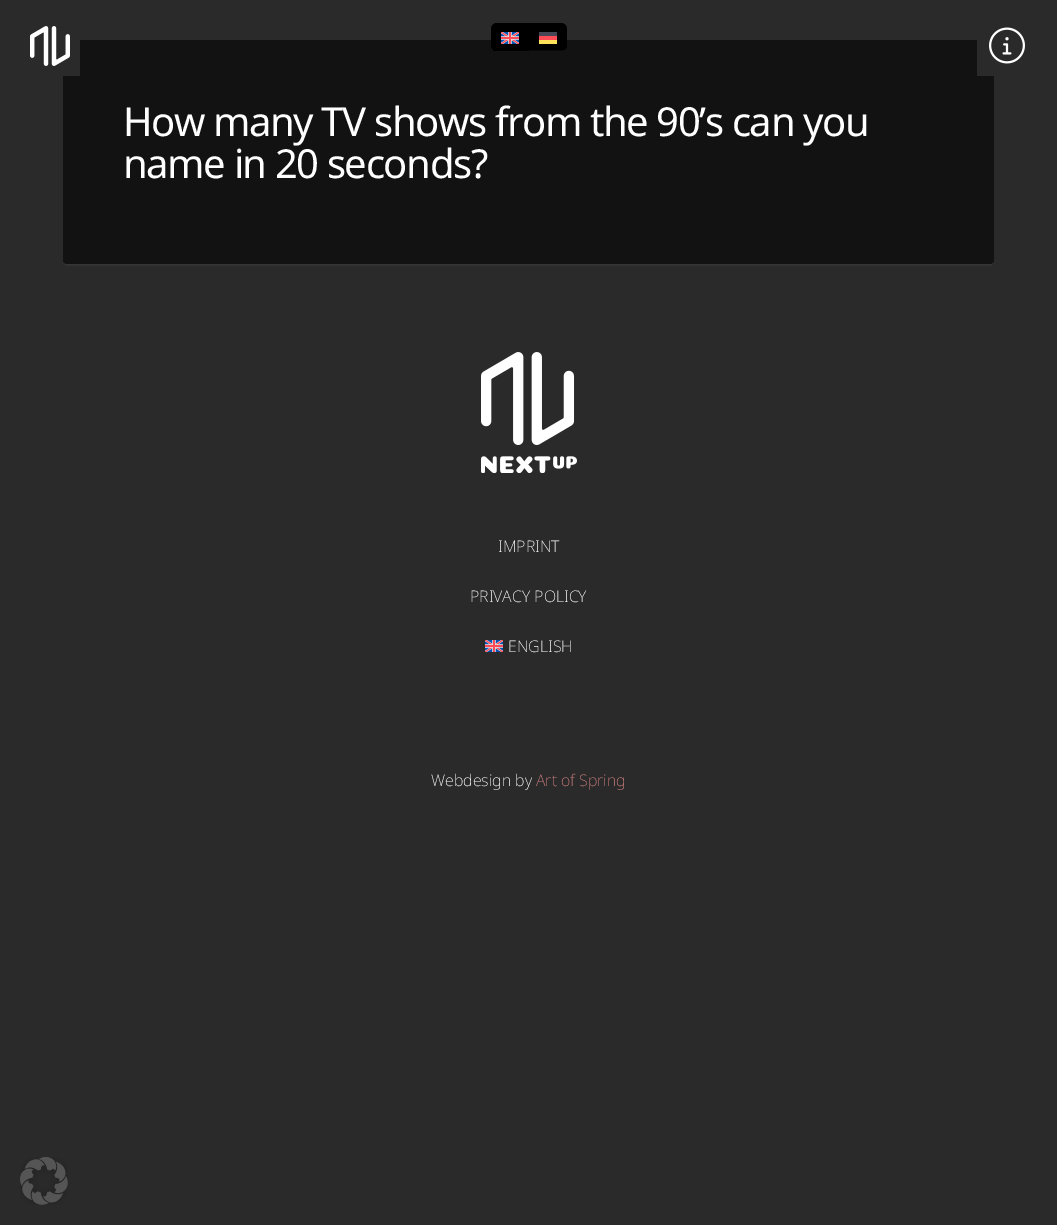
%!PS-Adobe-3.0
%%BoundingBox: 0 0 1057 1225
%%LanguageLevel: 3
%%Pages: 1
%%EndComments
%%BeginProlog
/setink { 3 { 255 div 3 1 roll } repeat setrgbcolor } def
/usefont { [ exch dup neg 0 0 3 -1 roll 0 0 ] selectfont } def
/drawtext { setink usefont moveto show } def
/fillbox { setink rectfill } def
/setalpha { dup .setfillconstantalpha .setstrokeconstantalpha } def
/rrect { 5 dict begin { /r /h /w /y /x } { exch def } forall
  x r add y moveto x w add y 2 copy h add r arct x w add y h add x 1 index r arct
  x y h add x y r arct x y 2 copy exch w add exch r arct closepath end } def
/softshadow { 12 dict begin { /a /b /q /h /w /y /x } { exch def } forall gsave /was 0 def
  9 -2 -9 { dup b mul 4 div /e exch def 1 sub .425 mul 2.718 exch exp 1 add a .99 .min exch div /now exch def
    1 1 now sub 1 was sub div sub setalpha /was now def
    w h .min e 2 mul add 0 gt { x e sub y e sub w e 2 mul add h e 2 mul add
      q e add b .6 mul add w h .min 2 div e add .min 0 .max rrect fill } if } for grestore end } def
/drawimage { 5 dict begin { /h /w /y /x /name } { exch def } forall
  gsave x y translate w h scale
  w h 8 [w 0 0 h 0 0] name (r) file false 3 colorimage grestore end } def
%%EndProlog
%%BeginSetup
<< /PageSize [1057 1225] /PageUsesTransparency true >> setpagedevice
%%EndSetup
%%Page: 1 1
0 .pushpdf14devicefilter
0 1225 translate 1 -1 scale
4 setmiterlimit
0 0 1057 1225 42 42 42 fillbox
255 255 255 setink
65 45 927 220 2 1 0.07 softshadow
18 18 18 setink
63 40 931 224 4 rrect fill
63 40 17 36 42 42 42 fillbox
(assets/img1.rgb) 30 26 40 40 drawimage
0 0 0 setink
491 23 76 28 6 rrect fill
gsave
491 23 76 28 6 rrect clip newpath
0.95 setalpha
491 50 38 1 0 0 0 fillbox
grestore
(assets/img2.rgb) 501 32 18 12 drawimage
0.04 setalpha
255 255 255 setink
529 50 moveto 529 51 lineto 561 51 lineto 562 51 563.5 50.5 564.5 50 curveto closepath fill
1 setalpha
539 32 18 4 70 70 85 fillbox
539 36 18 4 255 75 85 fillbox
539 40 18 4 255 225 90 fillbox
977 40 17 36 42 42 42 fillbox
(assets/img3.rgb) 989 27 36 37 drawimage
/NotoSans-Regular 40 usefont
255 255 255 setink
123 136 moveto -1.4 0 (How many TV shows from the 90’s can you) ashow
123 178 moveto -1.4 0 (name in 20 seconds?) ashow
(assets/img4.rgb) 481 352 96 121 drawimage
(IMPRINT) 498 552 /NotoSans-ExtraLight 16 255 255 255 drawtext
(PRIVACY POLICY) 470 602 /NotoSans-ExtraLight 16 255 255 255 drawtext
(assets/img2.rgb) 485 640 18 12 drawimage
(ENGLISH) 508 652 /NotoSans-ExtraLight 16 255 255 255 drawtext
(Webdesign by) 431 786 /NotoSans-ExtraLight 16 255 255 255 drawtext
(Art of Spring) 536 786 /NotoSans-ExtraLight 16 207 126 126 drawtext
(assets/img5.rgb) 20 1157 48 48 drawimage
.poppdf14devicefilter showpage
%%EOF
